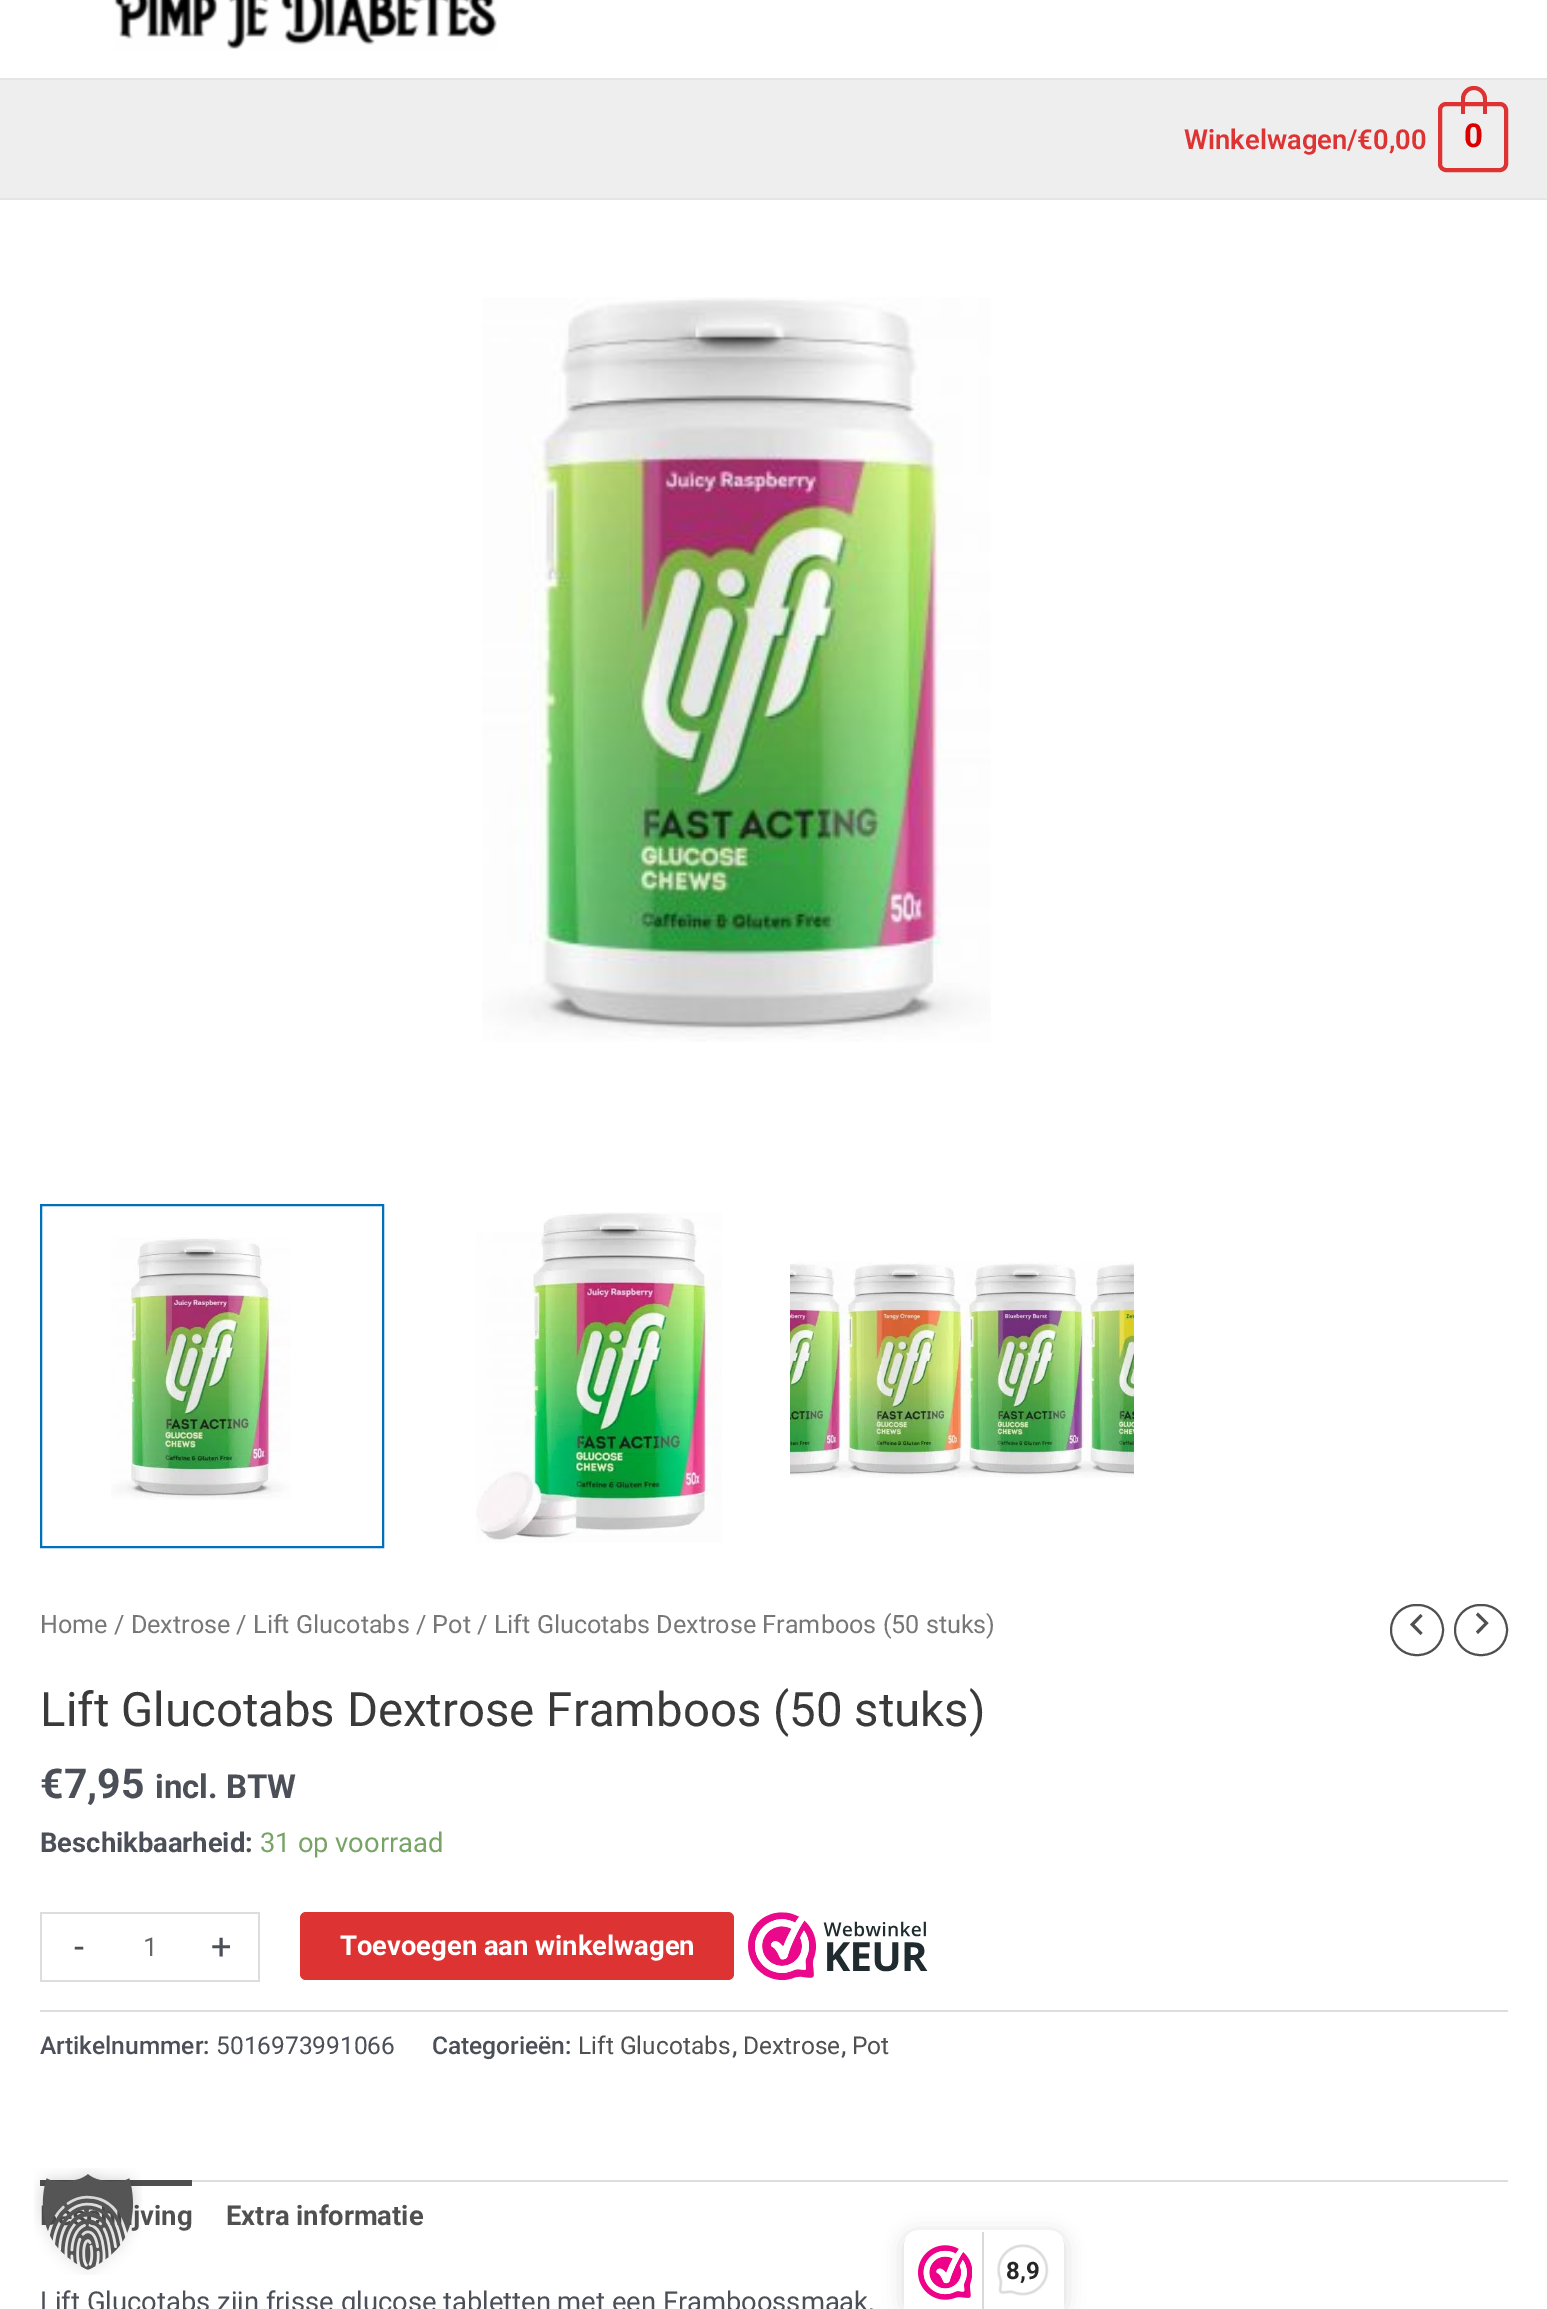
%!PS-Adobe-3.0
%%BoundingBox: 0 0 1547 2309
%%LanguageLevel: 3
%%Pages: 1
%%EndComments
%%BeginProlog
/setink { 3 { 255 div 3 1 roll } repeat setrgbcolor } def
/usefont { [ exch dup neg 0 0 3 -1 roll 0 0 ] selectfont } def
/drawtext { setink usefont moveto show } def
/fillbox { setink rectfill } def
/setalpha { dup .setfillconstantalpha .setstrokeconstantalpha } def
/rrect { 5 dict begin { /r /h /w /y /x } { exch def } forall
  x r add y moveto x w add y 2 copy h add r arct x w add y h add x 1 index r arct
  x y h add x y r arct x y 2 copy exch w add exch r arct closepath end } def
/softshadow { 12 dict begin { /a /b /q /h /w /y /x } { exch def } forall gsave /was 0 def
  9 -2 -9 { dup b mul 4 div /e exch def 1 sub .425 mul 2.718 exch exp 1 add a .99 .min exch div /now exch def
    1 1 now sub 1 was sub div sub setalpha /was now def
    w h .min e 2 mul add 0 gt { x e sub y e sub w e 2 mul add h e 2 mul add
      q e add b .6 mul add w h .min 2 div e add .min 0 .max rrect fill } if } for grestore end } def
/drawimage { 5 dict begin { /h /w /y /x /name } { exch def } forall
  gsave x y translate w h scale
  w h 8 [w 0 0 h 0 0] name (r) file false 3 colorimage grestore end } def
%%EndProlog
%%BeginSetup
<< /PageSize [1547 2309] /PageUsesTransparency true >> setpagedevice
%%EndSetup
%%Page: 1 1
0 .pushpdf14devicefilter
0 2309 translate 1 -1 scale
4 setmiterlimit
0 0 1547 2309 255 255 255 fillbox
0 78 1547 2 229 229 229 fillbox
(assets/img1.rgb) 113 0 384 50 drawimage
0 80 1547 118 238 238 238 fillbox
0 198 1547 2 229 229 229 fillbox
(Winkelwagen/€0,00) 1184 149 /Roboto-SemiBold 27.35 221 51 51 drawtext
4 setlinewidth
1440 104 66 66 6 rrect stroke
1474 86 moveto 1481 86 1487 92 1487 99 curveto 1487 114 lineto 1461 114 lineto 1461 99 lineto 1461 92 1466.5 86 1474 86 curveto closepath 1474 90 moveto 1479 90 1483 94 1483 99 curveto 1483 114 lineto 1465 114 lineto 1465 99 lineto 1465 94 1469 90 1474 90 curveto closepath eofill
(0) 1464 147 /Roboto-Bold 33 218 0 0 drawtext
(assets/img2.rgb) 482 297 509 745 drawimage
(assets/img3.rgb) 111 1237 180 263 drawimage
1 112 185 setink
2 setlinewidth
41 1205 342 342 rectstroke
(assets/img4.rgb) 476 1212 246 331 drawimage
(assets/img5.rgb) 790 1262 344 216 drawimage
(Home / Dextrose / Lift Glucotabs / Pot / Lift Glucotabs Dextrose Framboos \(50 stuks\)) 40 1633 /Roboto-Regular 25.15 119 119 119 drawtext
80 80 80 setink
1391 1605 52 50 25 rrect stroke
1420.5 1614 moveto 1410 1624.5 lineto 1420.5 1635 lineto 1422.5 1633 lineto 1414.5 1624.5 lineto 1422.5 1616 lineto closepath fill
1455 1605 52 50 25 rrect stroke
1478 1634 moveto 1488.5 1623 lineto 1478 1612.5 lineto 1476 1615 lineto 1484.5 1623 lineto 1476 1631.5 lineto closepath fill
(Lift Glucotabs Dextrose Framboos \(50 stuks\)) 40 1726 /Roboto-Regular 47.4 58 58 58 drawtext
(€7,95) 40 1798 /Roboto-Bold 41 75 79 88 drawtext
(incl. BTW) 155 1798 /Roboto-Bold 33 75 79 88 drawtext
(Beschikbaarheid:) 40 1852 /Roboto-Bold 27.35 75 79 88 drawtext
(31 op voorraad) 260 1852 /Roboto-Regular 27.35 119 164 100 drawtext
40 1912 220 2 221 221 221 fillbox
40 1980 144 2 221 221 221 fillbox
40 1912 2 70 221 221 221 fillbox
(-) 74 1959 /Roboto-Regular 36 75 79 88 drawtext
(1) 143 1956 /Roboto-Regular 26 102 102 102 drawtext
258 1912 2 70 221 221 221 fillbox
184 1980 76 2 221 221 221 fillbox
(+) 211 1959 /Roboto-Regular 36 75 79 88 drawtext
221 51 51 setink
300 1912 434 68 6 rrect fill
(Toevoegen aan winkelwagen) 340 1955 /Roboto-Bold 27.35 255 255 255 drawtext
(assets/img6.rgb) 748 1912 180 68 drawimage
40 2010 1468 2 221 221 221 fillbox
(Artikelnummer:) 40 2054 /Roboto-Medium 24.5 75 79 88 drawtext
(5016973991066) 216 2054 /Roboto-Regular 24.5 75 79 88 drawtext
(Categorieën:) 432 2054 /Roboto-Medium 24.5 75 79 88 drawtext
(Lift Glucotabs) 578 2054 /Roboto-Regular 24.5 80 80 80 drawtext
(,) 732 2054 /Roboto-Medium 24.5 75 79 88 drawtext
(Dextrose) 743 2054 /Roboto-Regular 24.5 80 80 80 drawtext
(,) 841 2054 /Roboto-Medium 24.5 75 79 88 drawtext
(Pot) 852 2054 /Roboto-Regular 24.5 80 80 80 drawtext
192 2180 1316 2 221 221 221 fillbox
40 2180 152 6 80 80 80 fillbox
(jving) 133 2225 /Roboto-Bold 27.35 80 80 80 drawtext
(Extra informatie) 226 2225 /Roboto-Bold 27.35 80 80 80 drawtext
(Lift Glucotabs zijn frisse glucose tabletten met een Framboossmaak.) 40 2311 /Roboto-Regular 27.35 75 79 88 drawtext
(assets/img7.rgb) 34 2168 108 107 drawimage
gsave
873 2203 moveto 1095 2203 lineto 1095 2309 lineto 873 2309 lineto closepath 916 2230 moveto 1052 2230 lineto 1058.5 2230 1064 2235.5 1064 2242 curveto 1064 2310 lineto 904 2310 lineto 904 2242 lineto 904 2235.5 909.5 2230 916 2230 curveto closepath eoclip newpath
0 0 0 setink
904 2234 160 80 12 10 0.15 softshadow
grestore
(assets/img8.rgb) 918 2245 54 55 drawimage
982 2232 2 77 217 217 217 fillbox
(assets/img9.rgb) 997 2244 52 52 drawimage
(8,9) 1006 2279 /Roboto-Bold 24 39 38 38 drawtext
.poppdf14devicefilter showpage
%%EOF
